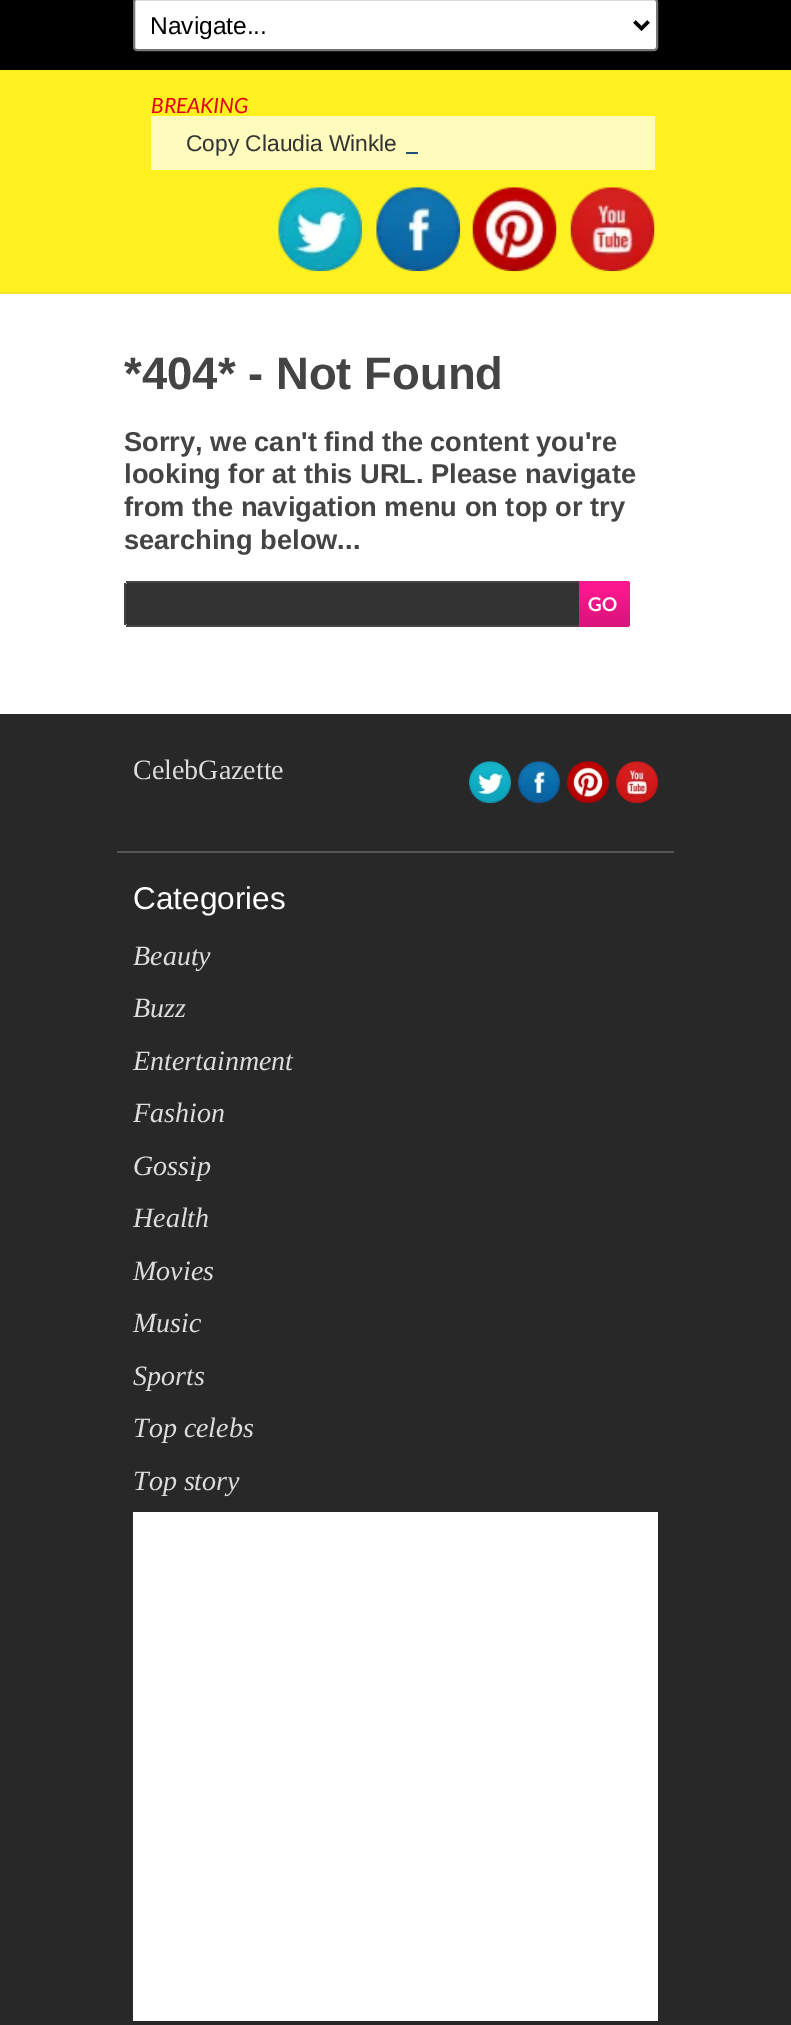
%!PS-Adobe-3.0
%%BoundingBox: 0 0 791 2025
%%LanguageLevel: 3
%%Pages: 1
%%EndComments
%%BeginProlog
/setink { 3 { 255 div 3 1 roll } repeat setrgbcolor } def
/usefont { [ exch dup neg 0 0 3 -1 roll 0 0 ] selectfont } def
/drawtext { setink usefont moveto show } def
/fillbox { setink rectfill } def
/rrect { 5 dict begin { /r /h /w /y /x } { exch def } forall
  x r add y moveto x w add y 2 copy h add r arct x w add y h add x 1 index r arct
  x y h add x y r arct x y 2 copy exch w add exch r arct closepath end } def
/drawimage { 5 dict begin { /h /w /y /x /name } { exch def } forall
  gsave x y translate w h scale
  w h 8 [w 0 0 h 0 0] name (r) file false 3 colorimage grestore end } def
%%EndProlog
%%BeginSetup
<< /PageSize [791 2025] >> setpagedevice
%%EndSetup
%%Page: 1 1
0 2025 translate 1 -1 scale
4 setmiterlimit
0 0 791 2025 255 255 255 fillbox
0 0 791 70 0 0 0 fillbox
255 255 255 setink
134 -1 523 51 3 rrect gsave fill grestore
118 118 118 setink
2 setlinewidth
stroke
0 0 0 setink
3.5 setlinewidth
634.5 21.5 moveto 641.5 28.5 lineto 648.5 21.5 lineto stroke
(Navigate...) 150 34 /LiberationSans-Regular 24.5 0 0 0 drawtext
0 70 791 222 255 241 32 fillbox
0 292 791 2 242 229 35 fillbox
(BREAKING) 151 113 /Lato-Italic 21 226 0 26 drawtext
151 116 504 54 255 251 189 fillbox
(Copy Claudia Winkle) 186 151 /LiberationSans-Regular 22.75 51 51 51 drawtext
406 152 12 2 31 82 123 fillbox
(assets/img1.rgb) 278 187 85 85 drawimage
(assets/img2.rgb) 376 187 85 85 drawimage
(assets/img3.rgb) 472 187 85 85 drawimage
(assets/img4.rgb) 570 187 85 85 drawimage
(*404* - Not Found) 124 389 /LiberationSans-Bold 45.5 68 68 68 drawtext
(Sorry, we can't find the content you're) 124 451 /LiberationSans-Bold 27.25 68 68 68 drawtext
(looking for at this URL. Please navigate) 124 483 /LiberationSans-Bold 27.25 68 68 68 drawtext
(from the navigation menu on top or try) 124 516 /LiberationSans-Bold 27.25 68 68 68 drawtext
(searching below...) 124 549 /LiberationSans-Bold 27.25 68 68 68 drawtext
51 51 51 setink
128 583 moveto 579 583 lineto 579 625 lineto 128 625 lineto 127 625 126 624 126 623 curveto 126 585 lineto 126 584 127 583 128 583 curveto closepath fill
126 581 453 2 67 67 67 fillbox
126 625 453 2 67 67 67 fillbox
124 583 2 42 67 67 67 fillbox
gsave 579 581 moveto 626 581 lineto 628 581 630 583 630 585 curveto 630 623 lineto 630 625 628 627 626 627 curveto 579 627 lineto closepath clip newpath
<< /ShadingType 2 /ColorSpace /DeviceRGB /Coords [605 581 605 627] /Extend [true true] /Function << /FunctionType 3 /Domain [0 1] /Functions [<< /FunctionType 2 /Domain [0 1] /C0 [1 0.094 0.569] /C1 [0.98 0.09 0.557] /N 1 >> << /FunctionType 2 /Domain [0 1] /C0 [0.98 0.09 0.557] /C1 [0.89 0.082 0.506] /N 1 >> << /FunctionType 2 /Domain [0 1] /C0 [0.89 0.082 0.506] /C1 [0.855 0.078 0.486] /N 1 >>] /Bounds [0.2 0.72] /Encode [0 1 0 1 0 1] >> >> shfill grestore
(GO) 588 611 /Lato-Bold 19 255 255 255 drawtext
0 714 791 1311 40 40 40 fillbox
117 851 557 2 85 85 85 fillbox
(CelebGazette) 133 779 /LiberationSerif-Regular 28 221 221 221 drawtext
(assets/img5.rgb) 469 761 42 43 drawimage
(assets/img6.rgb) 518 761 42 43 drawimage
(assets/img7.rgb) 567 761 42 43 drawimage
(assets/img8.rgb) 616 761 42 43 drawimage
(Categories) 133 909 /LiberationSans-Regular 31.5 255 255 255 drawtext
(Beauty) 133 965 /LiberationSerif-Italic 28 221 221 221 drawtext
(Buzz) 133 1017 /LiberationSerif-Italic 28 221 221 221 drawtext
(Entertainment) 133 1070 /LiberationSerif-Italic 28 221 221 221 drawtext
(Fashion) 133 1122 /LiberationSerif-Italic 28 221 221 221 drawtext
(Gossip) 133 1175 /LiberationSerif-Italic 28 221 221 221 drawtext
(Health) 133 1227 /LiberationSerif-Italic 28 221 221 221 drawtext
(Movies) 133 1280 /LiberationSerif-Italic 28 221 221 221 drawtext
(Music) 133 1332 /LiberationSerif-Italic 28 221 221 221 drawtext
(Sports) 133 1385 /LiberationSerif-Italic 28 221 221 221 drawtext
(Top celebs) 133 1437 /LiberationSerif-Italic 28 221 221 221 drawtext
(Top story) 133 1490 /LiberationSerif-Italic 28 221 221 221 drawtext
133 1512 525 509 255 255 255 fillbox
showpage
%%EOF
